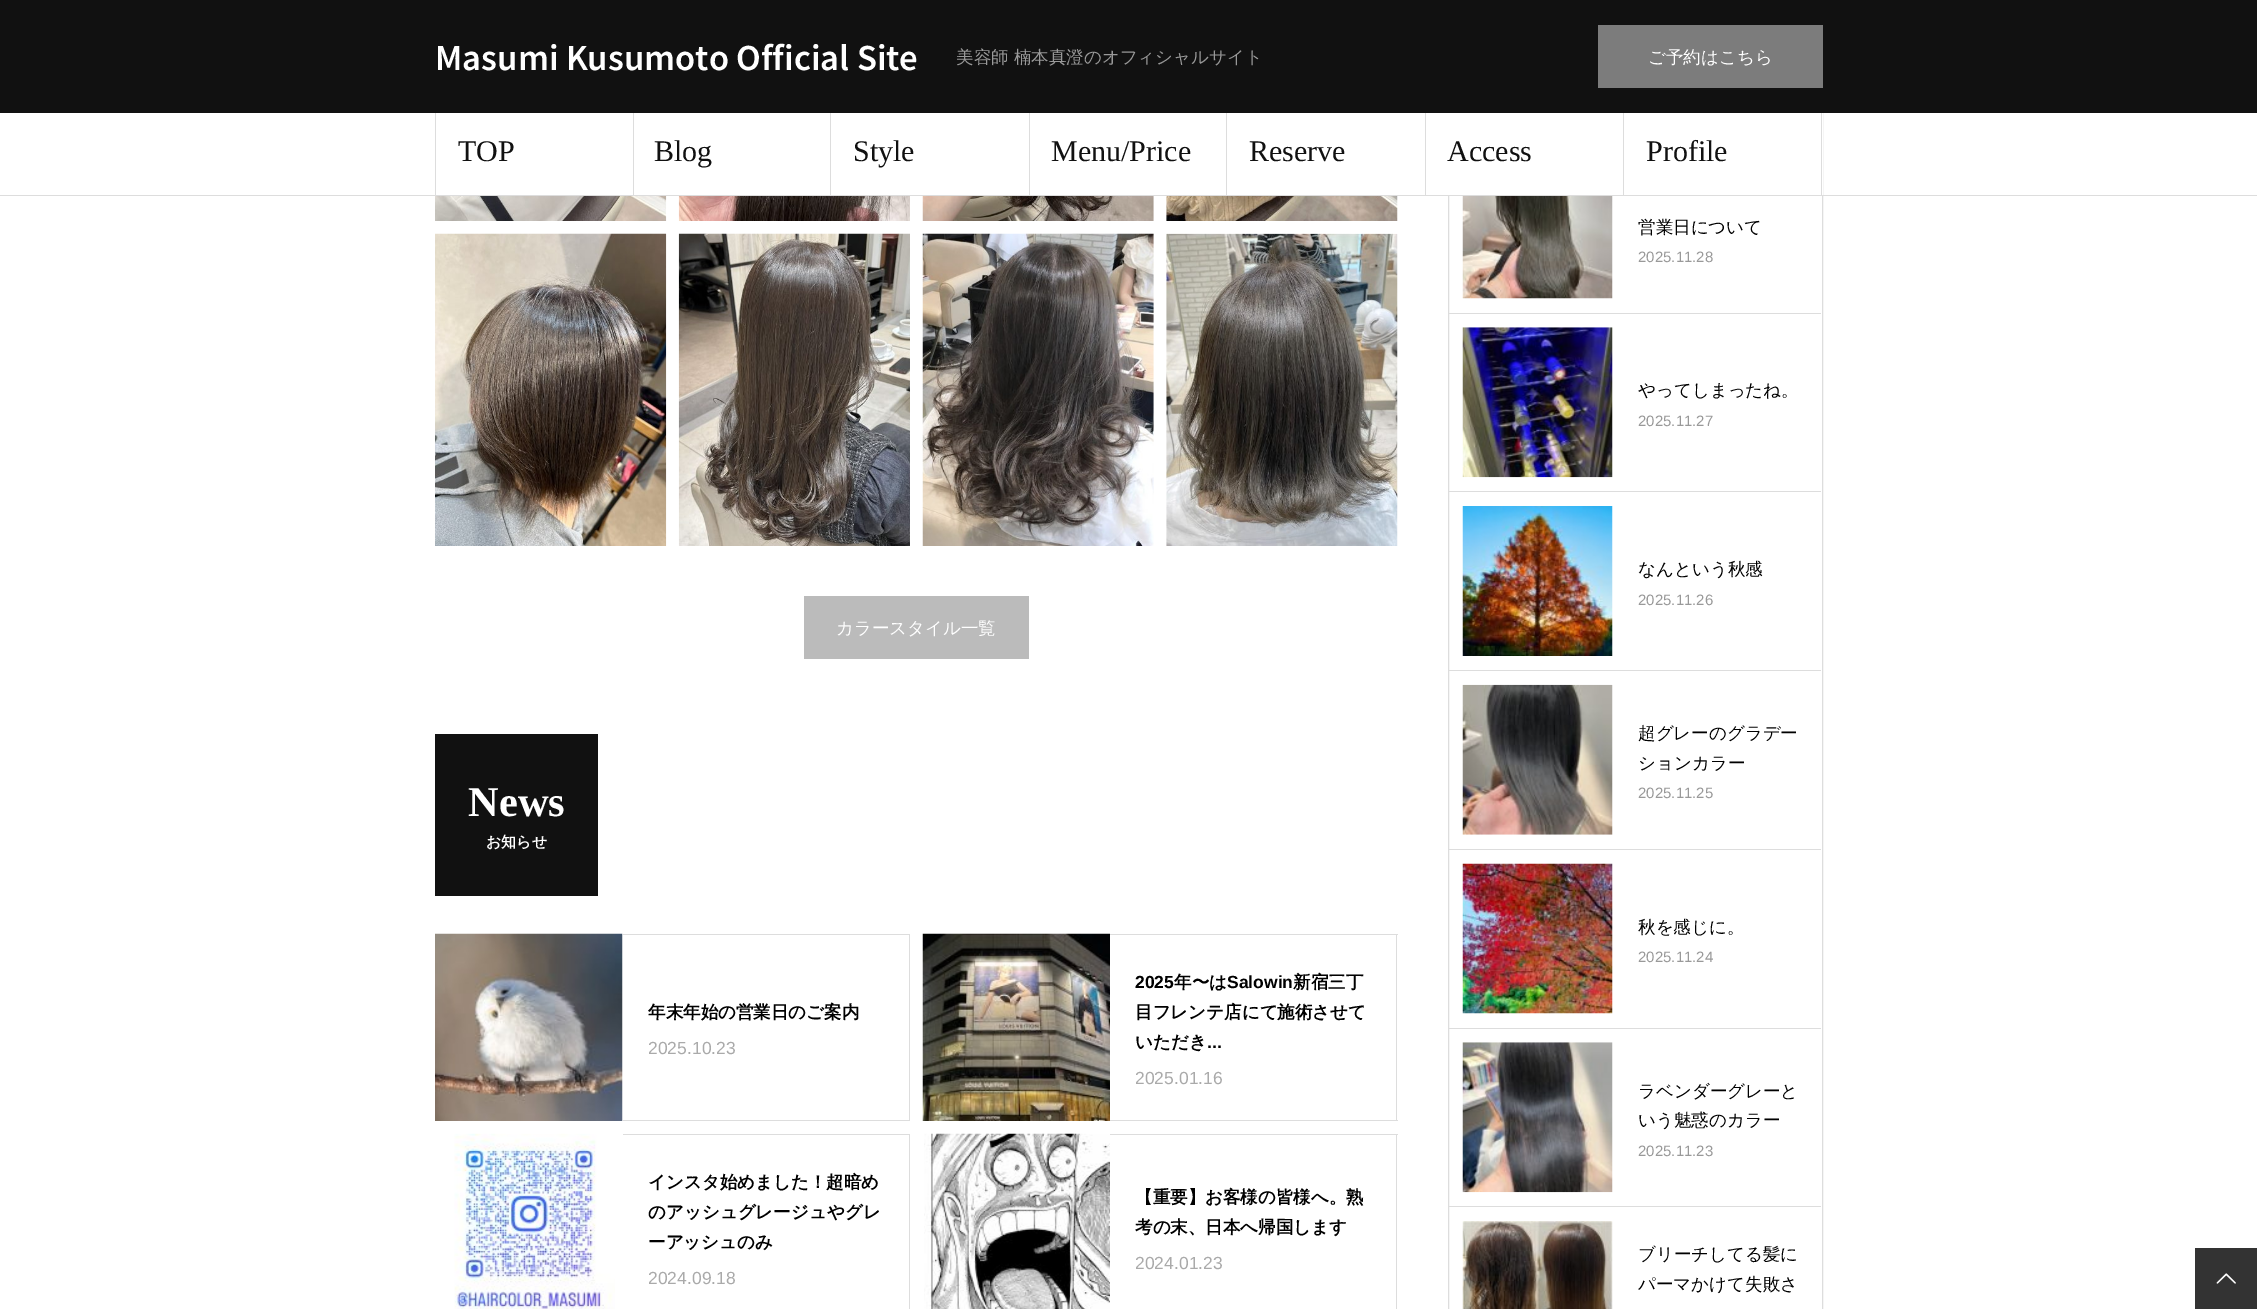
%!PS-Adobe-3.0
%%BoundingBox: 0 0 2257 1309
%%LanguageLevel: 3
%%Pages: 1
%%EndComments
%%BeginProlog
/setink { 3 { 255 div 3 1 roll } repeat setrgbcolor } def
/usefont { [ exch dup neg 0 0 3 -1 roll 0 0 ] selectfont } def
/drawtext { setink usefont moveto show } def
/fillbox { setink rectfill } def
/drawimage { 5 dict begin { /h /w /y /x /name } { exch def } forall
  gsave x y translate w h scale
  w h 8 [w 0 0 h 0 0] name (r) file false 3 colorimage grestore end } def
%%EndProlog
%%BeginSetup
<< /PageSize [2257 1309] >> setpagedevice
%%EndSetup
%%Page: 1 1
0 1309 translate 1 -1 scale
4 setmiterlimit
0 0 2257 1309 255 255 255 fillbox
221 221 221 setink
1448.5 -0.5 374 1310 rectstroke
0 0 2257 113 17 17 17 fillbox
0 195 2257 1 221 221 221 fillbox
(Masumi Kusumoto Official Site) 435 70 /NotoSansJP-SemiBold 32.5 255 255 255 drawtext
(美容師 楠本真澄のオフィシャルサイト) 956 63 /WenQuanYiZenHei-Medium 17.5 153 153 153 drawtext
1598 25 225 63 124 124 124 fillbox
(ご予約はこちら) 1648 63 /WenQuanYiZenHei-Medium 17.5 255 255 255 drawtext
1448 113 375 82 255 255 255 fillbox
633 113 1 82 221 221 221 fillbox
435 113 1 82 221 221 221 fillbox
(TOP) 458 161 /LiberationSerif-Regular 30 17 17 17 drawtext
830 113 1 82 221 221 221 fillbox
(Blog) 654 161 /LiberationSerif-Regular 30 17 17 17 drawtext
1029 113 1 82 221 221 221 fillbox
(Style) 853 161 /LiberationSerif-Regular 30 17 17 17 drawtext
1226 113 1 82 221 221 221 fillbox
(Menu/Price) 1051 161 /LiberationSerif-Regular 30 17 17 17 drawtext
1425 113 1 82 221 221 221 fillbox
(Reserve) 1249 161 /LiberationSerif-Regular 30 17 17 17 drawtext
1623 113 1 82 221 221 221 fillbox
(Access) 1447 161 /LiberationSerif-Regular 30 17 17 17 drawtext
1821 113 1 82 221 221 221 fillbox
(Profile) 1646 161 /LiberationSerif-Regular 30 17 17 17 drawtext
(assets/img1.rgb) 435 196 232 25 drawimage
(assets/img2.rgb) 678 196 232 25 drawimage
(assets/img3.rgb) 922 196 232 25 drawimage
(assets/img4.rgb) 1166 196 232 25 drawimage
(assets/img5.rgb) 435 233 232 313 drawimage
(assets/img6.rgb) 678 233 232 313 drawimage
(assets/img7.rgb) 922 233 232 313 drawimage
(assets/img8.rgb) 1166 233 232 313 drawimage
804 596 225 63 187 187 187 fillbox
(カラースタイル一覧) 836 634 /WenQuanYiZenHei-Medium 17.5 255 255 255 drawtext
435 734 163 162 17 17 17 fillbox
(News) 468 816 /LiberationSerif-Bold 42.5 255 255 255 drawtext
(お知らせ) 486 847 /WenQuanYiZenHei-Bold 15 255 255 255 drawtext
(assets/img9.rgb) 435 933 188 188 drawimage
623 934 287 1 221 221 221 fillbox
909 934 1 187 221 221 221 fillbox
623 1120 287 1 221 221 221 fillbox
(年末年始の営業日のご案内) 648 1018 /WenQuanYiZenHei-Bold 17.5 0 0 0 drawtext
(2025.10.23) 648 1054 /LiberationSans-Regular 17.5 170 170 170 drawtext
(assets/img10.rgb) 922 933 188 188 drawimage
1110 934 288 1 221 221 221 fillbox
1396 934 1 187 221 221 221 fillbox
1110 1120 288 1 221 221 221 fillbox
(2025) 1135 988 /LiberationSans-Bold 17.5 0 0 0 drawtext
(年〜は) 1174 988 /WenQuanYiZenHei-Bold 17.5 0 0 0 drawtext
(Salowin) 1227 988 /LiberationSans-Bold 17.5 0 0 0 drawtext
(新宿三丁) 1293 988 /WenQuanYiZenHei-Bold 17.5 0 0 0 drawtext
(目フレンテ店にて施術させて) 1135 1018 /WenQuanYiZenHei-Bold 17.5 0 0 0 drawtext
(いただき) 1135 1048 /WenQuanYiZenHei-Bold 17.5 0 0 0 drawtext
(...) 1207 1048 /LiberationSans-Bold 17.5 0 0 0 drawtext
(2025.01.16) 1135 1084 /LiberationSans-Regular 17.5 170 170 170 drawtext
(assets/img11.rgb) 454 1133 161 176 drawimage
623 1134 287 1 221 221 221 fillbox
909 1134 1 175 221 221 221 fillbox
(インスタ始めました！超暗め) 648 1188 /WenQuanYiZenHei-Bold 17.5 0 0 0 drawtext
(のアッシュグレージュやグレ) 648 1218 /WenQuanYiZenHei-Bold 17.5 0 0 0 drawtext
(ーアッシュのみ) 648 1248 /WenQuanYiZenHei-Bold 17.5 0 0 0 drawtext
(2024.09.18) 648 1284 /LiberationSans-Regular 17.5 170 170 170 drawtext
(assets/img12.rgb) 924 1133 186 176 drawimage
1110 1134 288 1 221 221 221 fillbox
1396 1134 1 175 221 221 221 fillbox
(【重要】お客様の皆様へ。熟) 1135 1203 /WenQuanYiZenHei-Bold 17.5 0 0 0 drawtext
(考の末、日本へ帰国します) 1135 1233 /WenQuanYiZenHei-Bold 17.5 0 0 0 drawtext
(2024.01.23) 1135 1269 /LiberationSans-Regular 17.5 170 170 170 drawtext
1449 313 372 1 221 221 221 fillbox
(assets/img13.rgb) 1462 196 151 103 drawimage
(営業日について) 1638 233 /WenQuanYiZenHei-Medium 17.5 0 0 0 drawtext
(2025.11.28) 1638 262 /LiberationSans-Regular 15 153 153 153 drawtext
1449 491 372 1 221 221 221 fillbox
(assets/img14.rgb) 1462 327 151 151 drawimage
(やってしまったね。) 1638 396 /WenQuanYiZenHei-Medium 17.5 0 0 0 drawtext
(2025.11.27) 1638 426 /LiberationSans-Regular 15 153 153 153 drawtext
1449 670 372 1 221 221 221 fillbox
(assets/img15.rgb) 1462 506 151 150 drawimage
(なんという秋感) 1638 575 /WenQuanYiZenHei-Medium 17.5 0 0 0 drawtext
(2025.11.26) 1638 605 /LiberationSans-Regular 15 153 153 153 drawtext
1449 849 372 1 221 221 221 fillbox
(assets/img16.rgb) 1462 684 151 151 drawimage
(超グレーのグラデー) 1638 739 /WenQuanYiZenHei-Medium 17.5 0 0 0 drawtext
(ションカラー) 1638 769 /WenQuanYiZenHei-Medium 17.5 0 0 0 drawtext
(2025.11.25) 1638 798 /LiberationSans-Regular 15 153 153 153 drawtext
1449 1028 372 1 221 221 221 fillbox
(assets/img17.rgb) 1462 863 151 151 drawimage
(秋を感じに。) 1638 933 /WenQuanYiZenHei-Medium 17.5 0 0 0 drawtext
(2025.11.24) 1638 962 /LiberationSans-Regular 15 153 153 153 drawtext
1449 1206 372 1 221 221 221 fillbox
(assets/img18.rgb) 1462 1042 151 151 drawimage
(ラベンダーグレーと) 1638 1097 /WenQuanYiZenHei-Medium 17.5 0 0 0 drawtext
(いう魅惑のカラー) 1638 1126 /WenQuanYiZenHei-Medium 17.5 0 0 0 drawtext
(2025.11.23) 1638 1156 /LiberationSans-Regular 15 153 153 153 drawtext
(assets/img19.rgb) 1462 1221 151 88 drawimage
(ブリーチしてる髪に) 1638 1260 /WenQuanYiZenHei-Medium 17.5 0 0 0 drawtext
(パーマかけて失敗さ) 1638 1290 /WenQuanYiZenHei-Medium 17.5 0 0 0 drawtext
2195 1248 62 61 51 51 51 fillbox
(assets/img20.rgb) 2216 1273 20 11 drawimage
showpage
%%EOF
